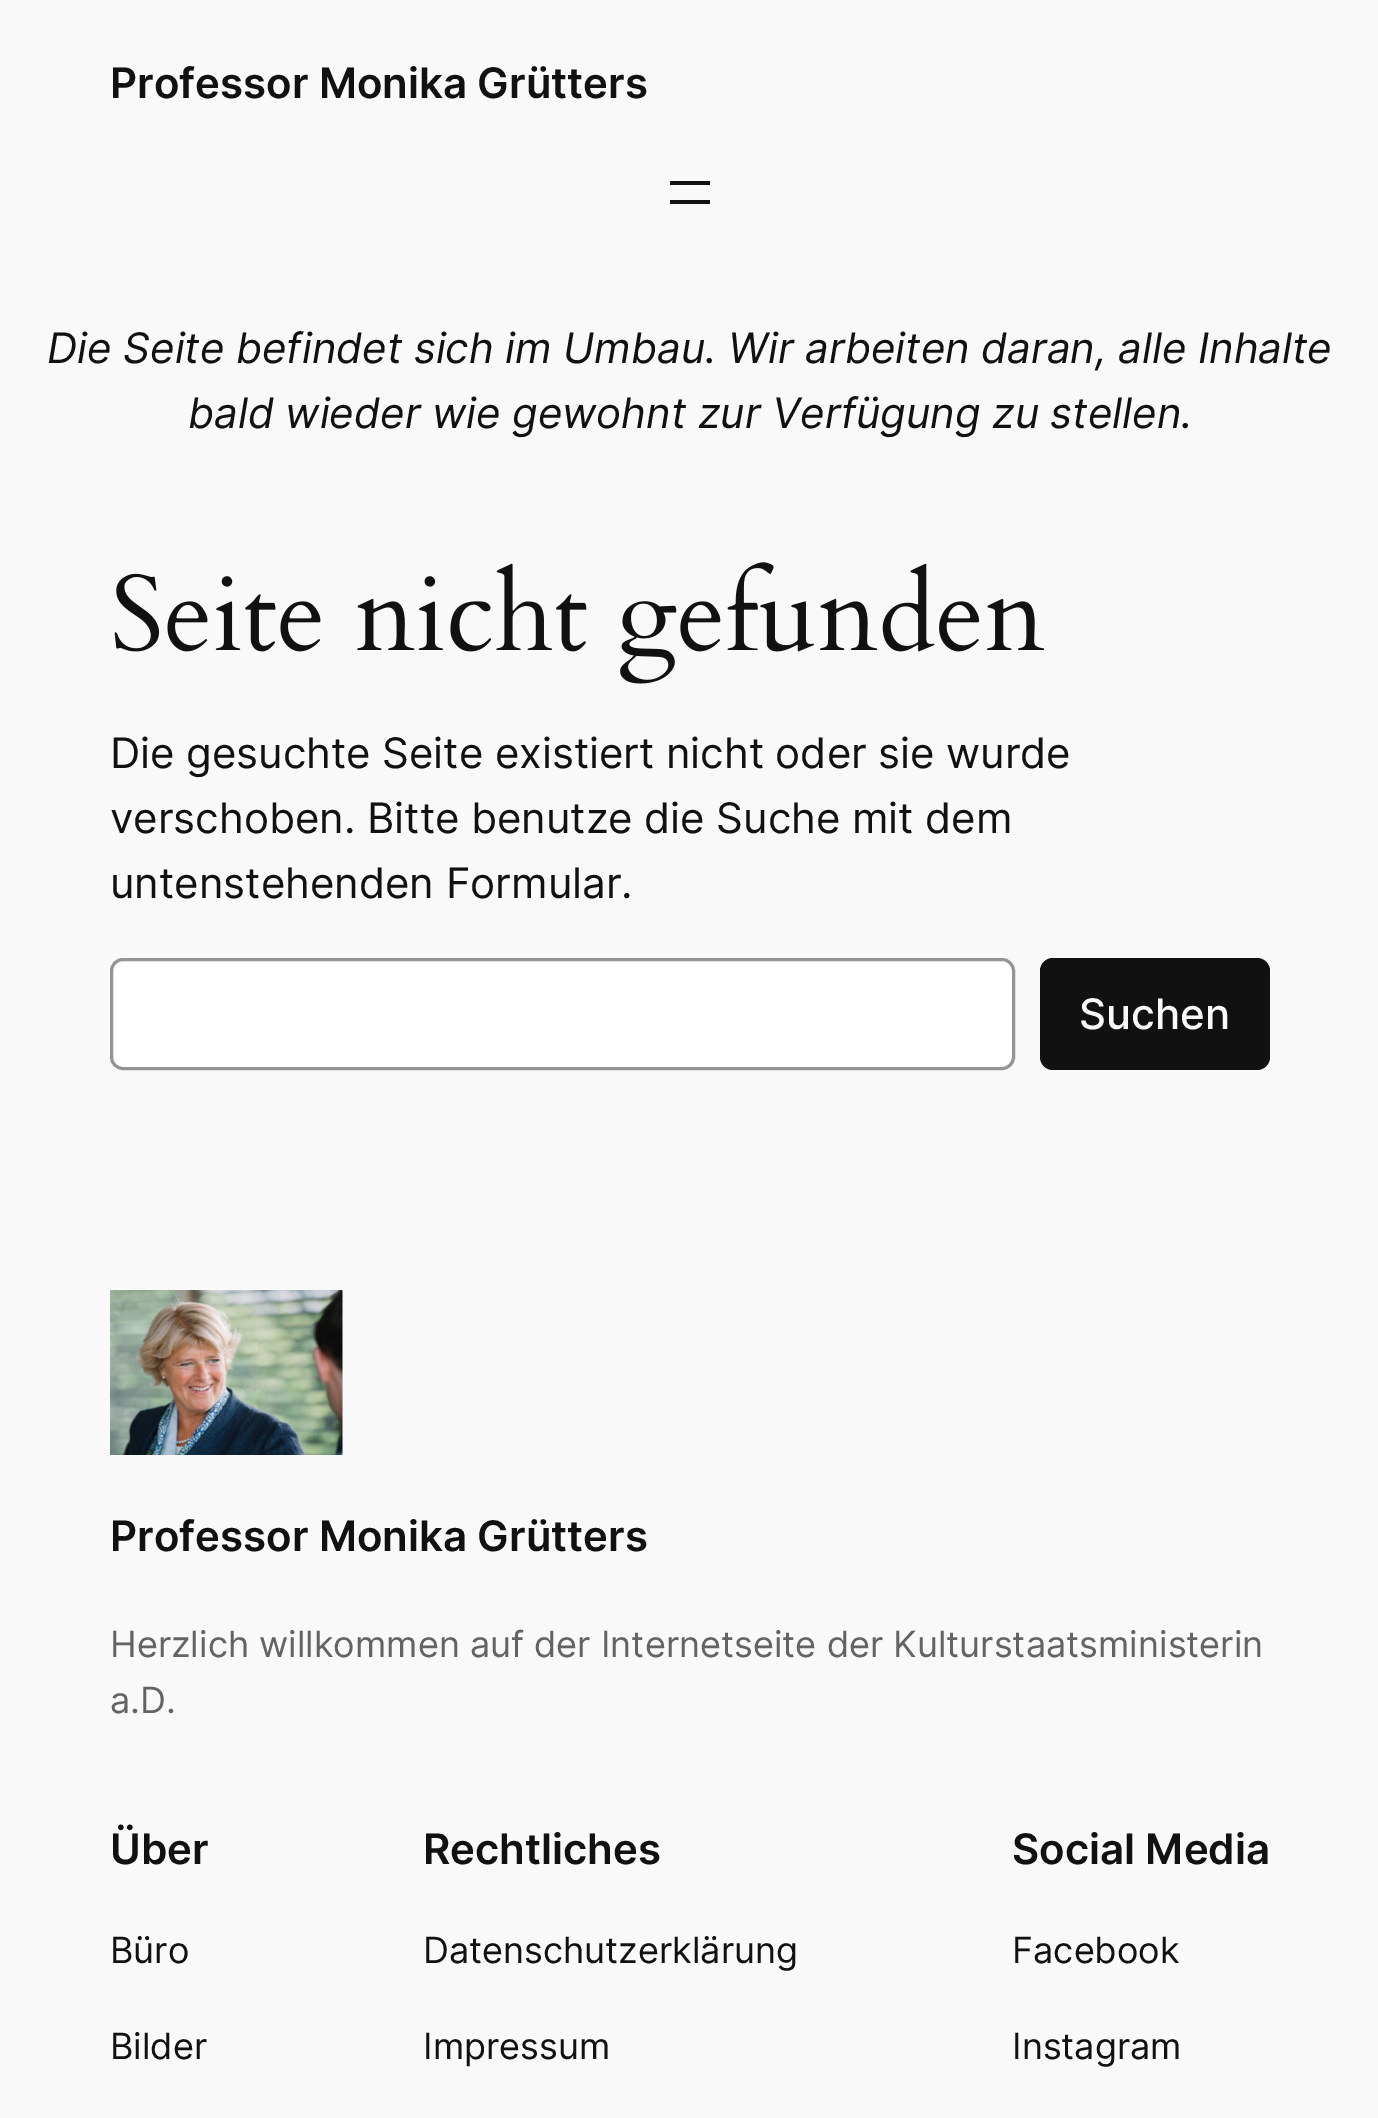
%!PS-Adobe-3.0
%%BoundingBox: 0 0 1378 2118
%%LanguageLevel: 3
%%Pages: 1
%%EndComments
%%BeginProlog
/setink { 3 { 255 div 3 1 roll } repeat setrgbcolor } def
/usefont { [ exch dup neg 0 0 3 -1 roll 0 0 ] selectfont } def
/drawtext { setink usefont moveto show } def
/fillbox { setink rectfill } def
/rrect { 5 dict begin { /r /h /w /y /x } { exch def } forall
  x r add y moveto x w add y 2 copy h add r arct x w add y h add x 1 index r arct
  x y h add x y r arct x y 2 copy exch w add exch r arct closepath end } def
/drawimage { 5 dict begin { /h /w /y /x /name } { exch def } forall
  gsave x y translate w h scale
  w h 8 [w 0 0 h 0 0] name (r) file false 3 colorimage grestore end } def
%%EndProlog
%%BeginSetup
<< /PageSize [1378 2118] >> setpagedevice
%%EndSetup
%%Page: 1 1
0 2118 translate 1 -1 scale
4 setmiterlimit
0 0 1378 2118 249 249 249 fillbox
(Professor Monika Grütters) 110 98 /Inter-SemiBold 42 17 17 17 drawtext
670 181 40 4 17 17 17 fillbox
670 200 40 4 17 17 17 fillbox
/Inter-Italic 42 usefont
47 363 moveto -0.25 0 32 (Die Seite befindet sich im Umbau. Wir arbeiten daran, alle Inhalte) widthshow
188 428 moveto -0.25 0 32 (bald wieder wie gewohnt zur Verfügung zu stellen.) widthshow
(assets/img1.rgb) 114 562 931 122 drawimage
/Inter-Regular 42 usefont
110 768 moveto -0.25 0 32 (Die gesuchte Seite existiert nicht oder sie wurde) widthshow
110 833 moveto -0.25 0 32 (verschoben. Bitte benutze die Suche mit dem) widthshow
(untenstehenden Formular.) 110 898 /Inter-Regular 42 17 17 17 drawtext
255 255 255 setink
111.5 959.5 902 109 11.5 rrect gsave fill grestore
148 148 148 setink
3 setlinewidth
stroke
17 17 17 setink
1040 958 230 112 13 rrect fill
(Suchen) 1079 1029 /Inter-Medium 42 249 249 249 drawtext
(assets/img2.rgb) 110 1290 233 165 drawimage
(Professor Monika Grütters) 110 1551 /Inter-SemiBold 42 17 17 17 drawtext
(Herzlich willkommen auf der Internetseite der Kulturstaatsministerin) 110 1657 /Inter-Regular 36 99 99 99 drawtext
(a.D.) 110 1713 /Inter-Regular 36 99 99 99 drawtext
(Über) 110 1864 /Inter-SemiBold 42 17 17 17 drawtext
(Büro) 110 1963 /Inter-Regular 36 17 17 17 drawtext
(Bilder) 110 2059 /Inter-Regular 36 17 17 17 drawtext
(Rechtliches) 423 1864 /Inter-SemiBold 42 17 17 17 drawtext
(Datenschutzerklärung) 423 1963 /Inter-Regular 36 17 17 17 drawtext
(Impressum) 423 2059 /Inter-Regular 36 17 17 17 drawtext
(Social Media) 1012 1864 /Inter-SemiBold 42 17 17 17 drawtext
(Facebook) 1012 1963 /Inter-Regular 36 17 17 17 drawtext
(Instagram) 1012 2059 /Inter-Regular 36 17 17 17 drawtext
showpage
%%EOF
